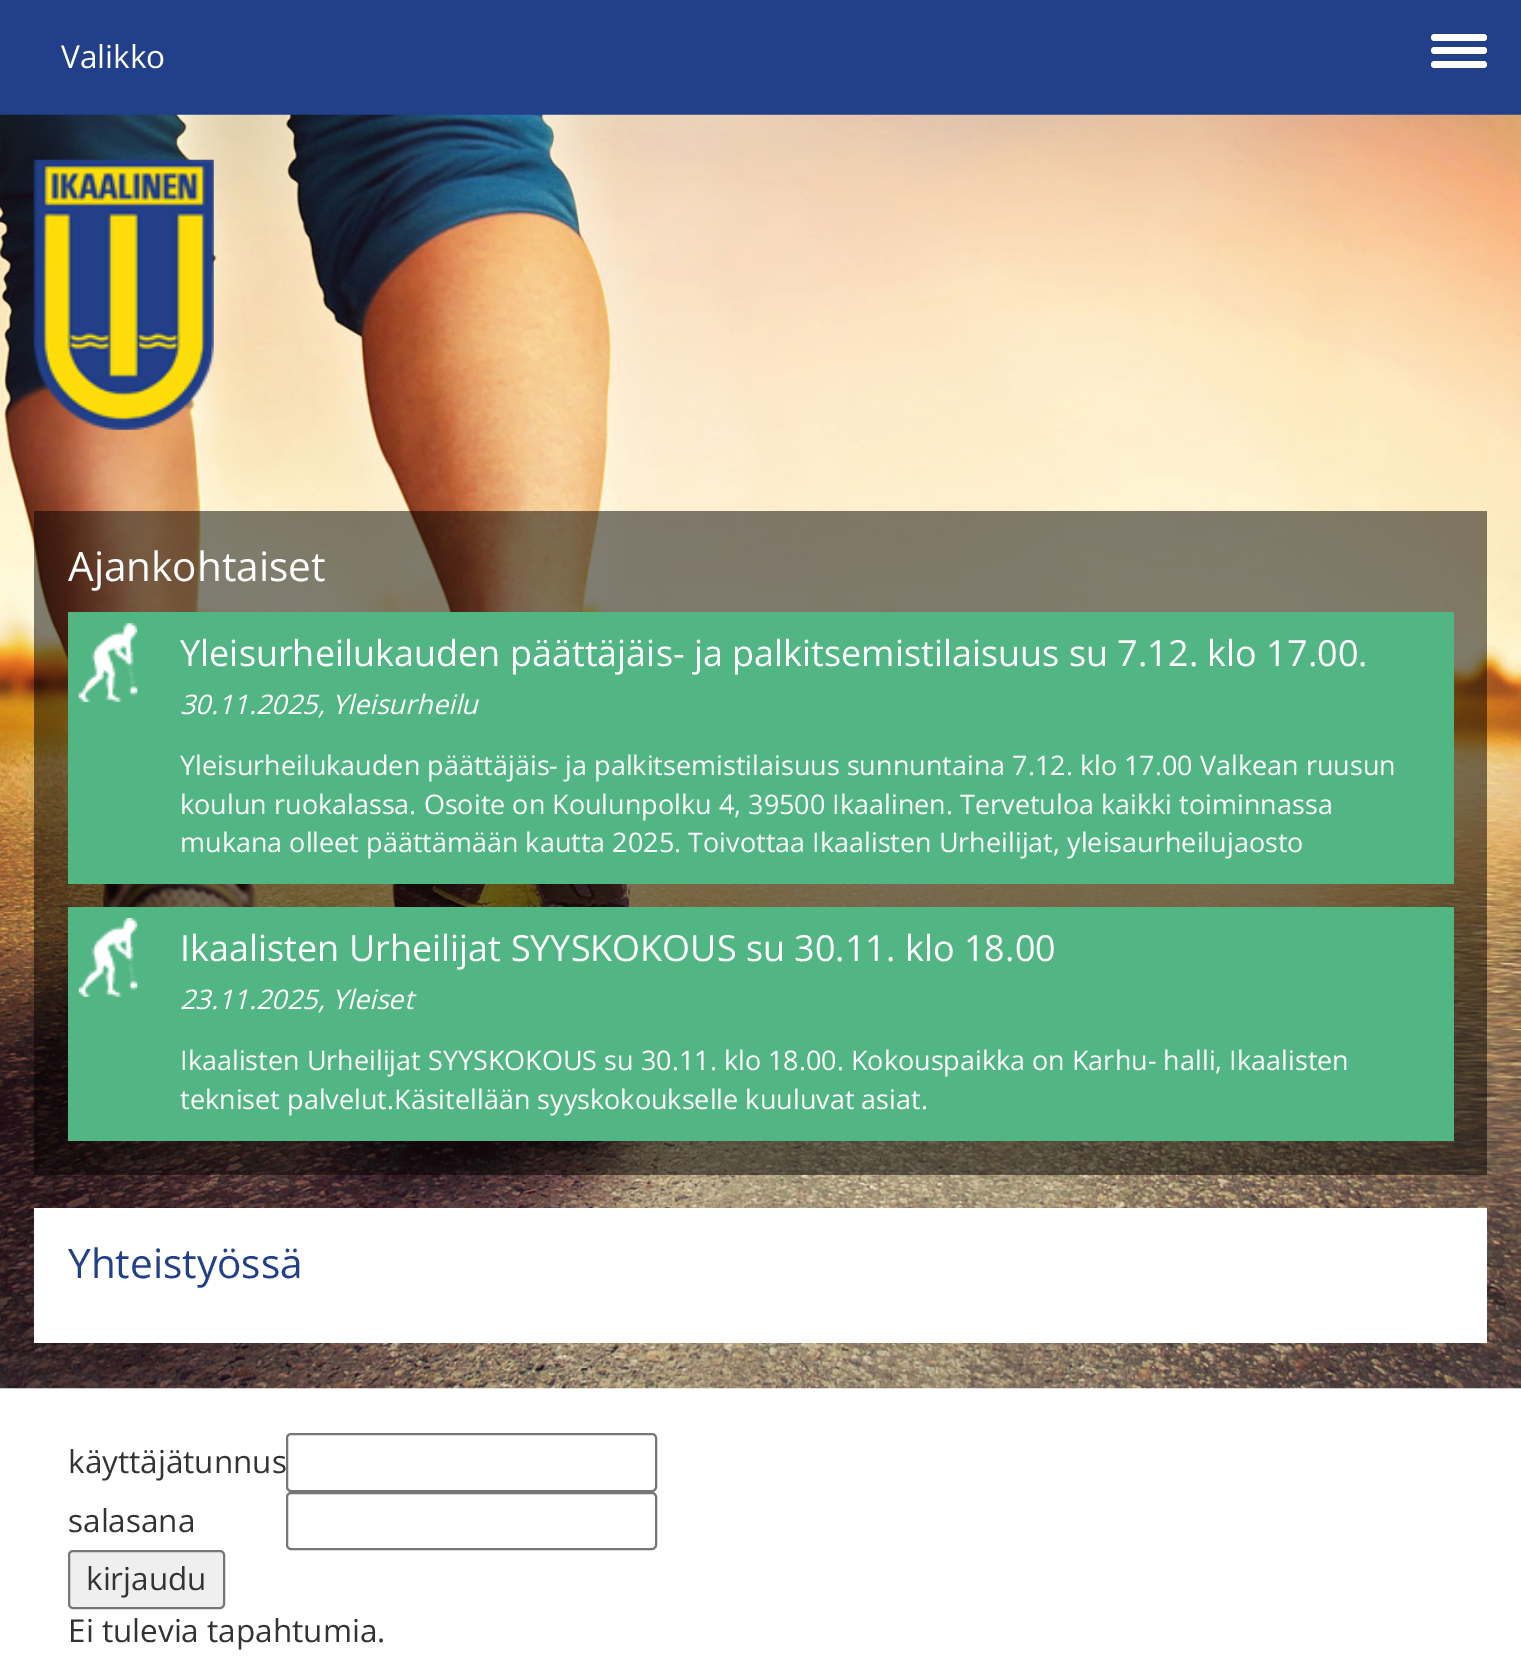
%!PS-Adobe-3.0
%%BoundingBox: 0 0 1521 1678
%%LanguageLevel: 3
%%Pages: 1
%%EndComments
%%BeginProlog
/setink { 3 { 255 div 3 1 roll } repeat setrgbcolor } def
/usefont { [ exch dup neg 0 0 3 -1 roll 0 0 ] selectfont } def
/drawtext { setink usefont moveto show } def
/fillbox { setink rectfill } def
/setalpha { dup .setfillconstantalpha .setstrokeconstantalpha } def
/rrect { 5 dict begin { /r /h /w /y /x } { exch def } forall
  x r add y moveto x w add y 2 copy h add r arct x w add y h add x 1 index r arct
  x y h add x y r arct x y 2 copy exch w add exch r arct closepath end } def
/drawimage { 5 dict begin { /h /w /y /x /name } { exch def } forall
  gsave x y translate w h scale
  w h 8 [w 0 0 h 0 0] name (r) file false 3 colorimage grestore end } def
%%EndProlog
%%BeginSetup
<< /PageSize [1521 1678] /PageUsesTransparency true >> setpagedevice
%%EndSetup
%%Page: 1 1
0 .pushpdf14devicefilter
0 1678 translate 1 -1 scale
4 setmiterlimit
0 0 1521 1678 255 255 255 fillbox
0 0 1521 115 34 64 137 fillbox
(Valikko) 61 68 /OpenSans-Regular 31.5 255 255 255 drawtext
1431 34 56 7 3.5 rrect fill
1431 47 56 7 3.5 rrect fill
1431 61 56 7 3.5 rrect fill
(assets/img1.rgb) 0 114 1521 1275 drawimage
(assets/img2.rgb) 33 159 181 271 drawimage
0.5 setalpha
34 511 1453 664 0 0 0 fillbox
1 setalpha
(Ajankohtaiset) 68 581 /OpenSans-Regular 40.5 255 255 255 drawtext
68 612 1386 272 82 182 132 fillbox
(assets/img3.rgb) 78 623 60 79 drawimage
(Yleisurheilukauden päättäjäis- ja palkitsemistilaisuus su 7.12. klo 17.00.) 180 666 /OpenSans-Regular 36 255 255 255 drawtext
(30.11.2025, Yleisurheilu) 180 714 /OpenSans-Italic 27 255 255 255 drawtext
(Yleisurheilukauden päättäjäis- ja palkitsemistilaisuus sunnuntaina 7.12. klo 17.00 Valkean ruusun) 180 775 /OpenSans-Regular 27 255 255 255 drawtext
(koulun ruokalassa. Osoite on Koulunpolku 4, 39500 Ikaalinen. Tervetuloa kaikki toiminnassa) 180 814 /OpenSans-Regular 27 255 255 255 drawtext
(mukana olleet päättämään kautta 2025. Toivottaa Ikaalisten Urheilijat, yleisaurheilujaosto) 180 852 /OpenSans-Regular 27 255 255 255 drawtext
68 907 1386 234 82 182 132 fillbox
(assets/img4.rgb) 78 918 60 79 drawimage
(Ikaalisten Urheilijat SYYSKOKOUS su 30.11. klo 18.00) 180 961 /OpenSans-Regular 36 255 255 255 drawtext
(23.11.2025, Yleiset) 180 1009 /OpenSans-Italic 27 255 255 255 drawtext
(Ikaalisten Urheilijat SYYSKOKOUS su 30.11. klo 18.00. Kokouspaikka on Karhu- halli, Ikaalisten) 180 1070 /OpenSans-Regular 27 255 255 255 drawtext
(tekniset palvelut.Käsitellään syyskokoukselle kuuluvat asiat.) 180 1109 /OpenSans-Regular 27 255 255 255 drawtext
34 1208 1453 135 255 255 255 fillbox
(Yhteistyössä) 68 1278 /OpenSans-Regular 40.5 34 64 137 drawtext
(käyttäjätunnus) 68 1473 /OpenSans-Regular 31.5 51 51 51 drawtext
118 118 118 setink
2 setlinewidth
287 1434 369 57 4 rrect stroke
(salasana) 68 1532 /OpenSans-Regular 31.5 51 51 51 drawtext
118 118 118 setink
287 1493 369 56 4 rrect stroke
239 239 239 setink
69 1551 155 57 4 rrect gsave fill grestore
118 118 118 setink
stroke
(kirjaudu) 86 1590 /OpenSans-Regular 31.5 51 51 51 drawtext
(Ei tulevia tapahtumia.) 68 1642 /OpenSans-Regular 31.5 51 51 51 drawtext
.poppdf14devicefilter showpage
%%EOF
